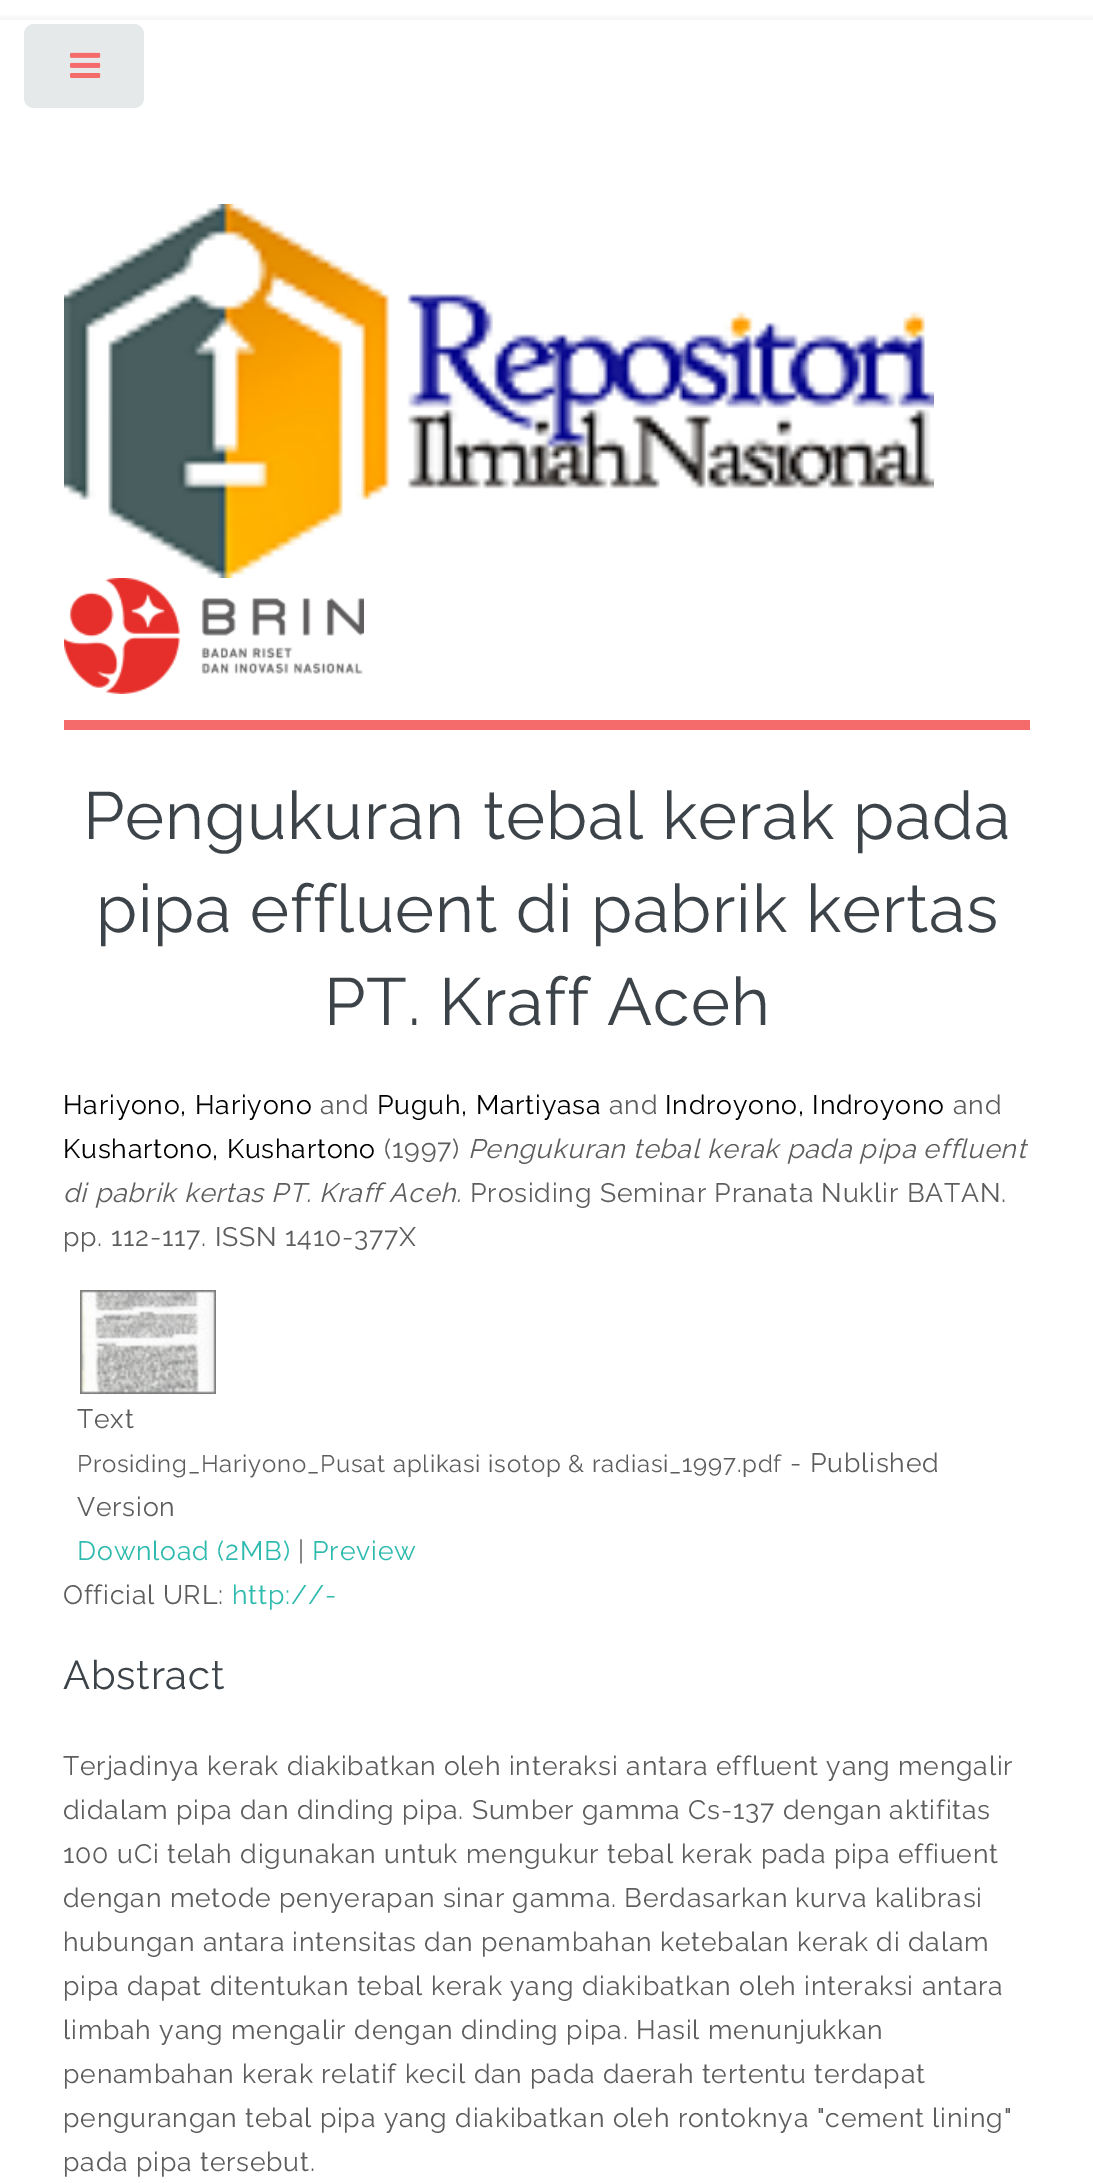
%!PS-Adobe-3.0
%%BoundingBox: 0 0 1093 2183
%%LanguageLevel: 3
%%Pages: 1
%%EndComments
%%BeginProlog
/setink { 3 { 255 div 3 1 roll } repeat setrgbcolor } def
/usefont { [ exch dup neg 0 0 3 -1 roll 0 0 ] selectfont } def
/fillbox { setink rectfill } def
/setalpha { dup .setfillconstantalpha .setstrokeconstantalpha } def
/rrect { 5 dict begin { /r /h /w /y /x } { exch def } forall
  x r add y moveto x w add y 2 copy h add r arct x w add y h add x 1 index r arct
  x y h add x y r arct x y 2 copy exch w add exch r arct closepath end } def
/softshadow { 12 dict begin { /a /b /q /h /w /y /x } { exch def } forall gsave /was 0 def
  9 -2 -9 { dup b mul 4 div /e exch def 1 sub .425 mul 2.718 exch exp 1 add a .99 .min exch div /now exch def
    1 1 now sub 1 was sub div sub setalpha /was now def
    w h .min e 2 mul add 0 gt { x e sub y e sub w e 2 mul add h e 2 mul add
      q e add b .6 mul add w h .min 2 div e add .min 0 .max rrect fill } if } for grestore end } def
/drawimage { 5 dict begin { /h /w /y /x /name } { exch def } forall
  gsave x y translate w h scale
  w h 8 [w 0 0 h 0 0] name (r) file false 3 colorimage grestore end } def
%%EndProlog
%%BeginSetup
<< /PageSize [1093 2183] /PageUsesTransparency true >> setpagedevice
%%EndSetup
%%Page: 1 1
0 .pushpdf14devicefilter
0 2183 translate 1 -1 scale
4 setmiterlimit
0 0 1093 2183 255 255 255 fillbox
gsave
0 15 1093 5 rectclip
100 100 100 setink
0 24 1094 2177 0 6 0.3 softshadow
grestore
230 233 233 setink
24 24 120 84 10 rrect fill
(assets/img1.rgb) 70 52 31 26 drawimage
64 720 966 10 245 106 106 fillbox
(assets/img2.rgb) 64 204 870 374 drawimage
(assets/img3.rgb) 64 578 300 116 drawimage
/Raleway-Regular 66.7 usefont
61 68 73 setink
83 839 moveto 0.8 0 (Pengukuran tebal kerak pada) ashow
96 932 moveto 0.8 0 (pipa effluent di pabrik kertas) ashow
324 1025 moveto 0.8 0 (PT. Kraff Aceh) ashow
/Raleway-Regular 26.65 usefont
0 0 0 setink
63 1114 moveto 0.8 0 (Hariyono, Hariyono) ashow
93 93 93 setink
320 1114 moveto 0.8 0 (and) ashow
0 0 0 setink
377 1114 moveto 0.8 0 (Puguh, Martiyasa) ashow
93 93 93 setink
609 1114 moveto 0.8 0 (and) ashow
0 0 0 setink
665 1114 moveto 0.8 0 (Indroyono, Indroyono) ashow
93 93 93 setink
953 1114 moveto 0.8 0 (and) ashow
0 0 0 setink
63 1158 moveto 0.8 0 (Kushartono, Kushartono) ashow
93 93 93 setink
384 1158 moveto 0.8 0 (\(1997\)) ashow
/Raleway-Italic 26.65 usefont
468 1158 moveto 0.8 0 (Pengukuran tebal kerak pada pipa effluent) ashow
63 1202 moveto 0.8 0 (di pabrik kertas PT. Kraff Aceh.) ashow
/Raleway-Regular 26.65 usefont
470 1202 moveto 0.8 0 (Prosiding Seminar Pranata Nuklir BATAN.) ashow
63 1246 moveto 0.8 0 (pp. 112-117. ISSN 1410-377X) ashow
(assets/img4.rgb) 80 1290 136 104 drawimage
77 1428 moveto 0.8 0 (Text) ashow
/Raleway-Regular 24 usefont
77 1472 moveto 0.8 0 (Prosiding_Hariyono_Pusat aplikasi isotop & radiasi_1997.pdf) ashow
/Raleway-Regular 26.65 usefont
790 1472 moveto 0.8 0 (- Published) ashow
77 1516 moveto 0.8 0 (Version) ashow
46 186 174 setink
77 1560 moveto 0.8 0 (Download \(2MB\)) ashow
93 93 93 setink
298 1560 moveto 0.8 0 (|) ashow
46 186 174 setink
312 1560 moveto 0.8 0 (Preview) ashow
93 93 93 setink
63 1604 moveto 0.8 0 (Official URL:) ashow
46 186 174 setink
232 1604 moveto 0.8 0 (http://-) ashow
/Raleway-Regular 40 usefont
61 68 73 setink
63 1689 moveto 0.8 0 (Abstract) ashow
/Raleway-Regular 26.65 usefont
93 93 93 setink
63 1775 moveto 0.8 0 (Terjadinya kerak diakibatkan oleh interaksi antara effluent yang mengalir) ashow
63 1819 moveto 0.8 0 (didalam pipa dan dinding pipa. Sumber gamma Cs-137 dengan aktifitas) ashow
63 1863 moveto 0.8 0 (100 uCi telah digunakan untuk mengukur tebal kerak pada pipa effiuent) ashow
63 1907 moveto 0.8 0 (dengan metode penyerapan sinar gamma. Berdasarkan kurva kalibrasi) ashow
63 1951 moveto 0.8 0 (hubungan antara intensitas dan penambahan ketebalan kerak di dalam) ashow
63 1995 moveto 0.8 0 (pipa dapat ditentukan tebal kerak yang diakibatkan oleh interaksi antara) ashow
63 2039 moveto 0.8 0 (limbah yang mengalir dengan dinding pipa. Hasil menunjukkan) ashow
63 2083 moveto 0.8 0 (penambahan kerak relatif kecil dan pada daerah tertentu terdapat) ashow
63 2127 moveto 0.8 0 (pengurangan tebal pipa yang diakibatkan oleh rontoknya "cement lining") ashow
63 2171 moveto 0.8 0 (pada pipa tersebut.) ashow
.poppdf14devicefilter showpage
%%EOF
